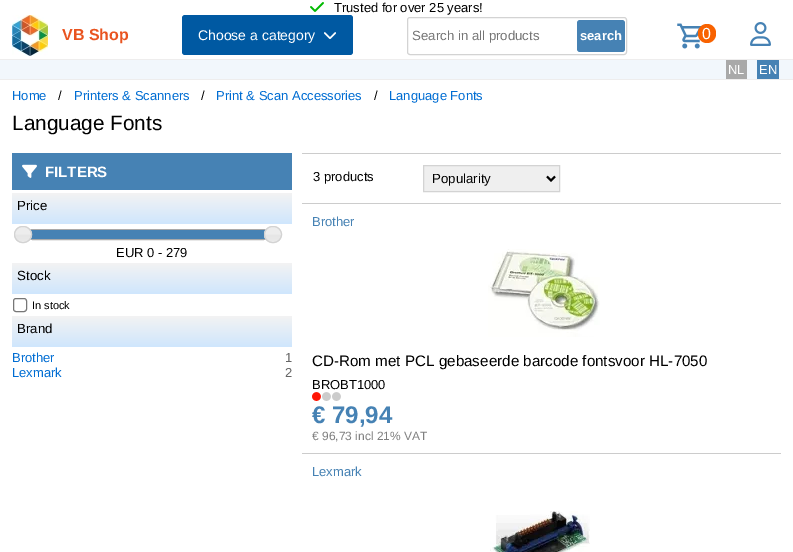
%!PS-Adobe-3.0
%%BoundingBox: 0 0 793 552
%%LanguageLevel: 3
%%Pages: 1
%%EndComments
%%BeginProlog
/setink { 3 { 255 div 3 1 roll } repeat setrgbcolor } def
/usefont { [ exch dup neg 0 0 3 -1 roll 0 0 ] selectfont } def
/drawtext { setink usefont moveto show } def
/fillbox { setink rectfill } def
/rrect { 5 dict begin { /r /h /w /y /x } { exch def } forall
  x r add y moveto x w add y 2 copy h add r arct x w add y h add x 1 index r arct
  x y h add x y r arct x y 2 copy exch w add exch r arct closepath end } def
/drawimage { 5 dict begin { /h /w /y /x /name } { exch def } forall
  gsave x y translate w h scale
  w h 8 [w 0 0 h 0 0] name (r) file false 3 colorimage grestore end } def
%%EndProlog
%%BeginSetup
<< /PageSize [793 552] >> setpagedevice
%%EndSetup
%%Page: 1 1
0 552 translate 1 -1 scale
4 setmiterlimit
0 0 793 552 255 255 255 fillbox
0 79 793 1 238 237 237 fillbox
(assets/img1.rgb) 310 2 14 10 drawimage
(Trusted for over 25 years!) 334 12 /LiberationSans-Regular 13 0 0 0 drawtext
0 59 793 1 238 237 237 fillbox
(assets/img2.rgb) 12 15 36 41 drawimage
(VB Shop) 62 40 /LiberationSans-Bold 16 233 84 32 drawtext
0 89 162 setink
182 15 171 40 3 rrect fill
(Choose a category) 198 40 /LiberationSans-Regular 14 255 255 255 drawtext
(assets/img3.rgb) 324 32 12 7 drawimage
211 211 211 setink
407.5 17.5 219 37 2.5 rrect stroke
(Search in all products) 412 40 /LiberationSans-Regular 13.25 117 117 117 drawtext
70 130 180 setink
577 20 48 32 3 rrect fill
(search) 580 40 /LiberationSans-Bold 13 255 255 255 drawtext
(assets/img4.rgb) 677 23 25 26 drawimage
248 98 0 setink
698 24 18 19 9 rrect fill
(0) 702 39 /LiberationSans-Regular 16 255 255 255 drawtext
(assets/img5.rgb) 750 22 21 24 drawimage
0 60 793 19 242 247 252 fillbox
726 60 21 19 169 169 169 fillbox
(NL) 728 74 /LiberationSans-Regular 13 255 255 255 drawtext
757 60 22 19 70 130 180 fillbox
(EN) 759 74 /LiberationSans-Regular 13 255 255 255 drawtext
(Home) 12 100 /LiberationSans-Regular 13 0 109 211 drawtext
(/) 58 100 /LiberationSans-Regular 13 0 0 0 drawtext
(Printers & Scanners) 74 100 /LiberationSans-Regular 13 0 109 211 drawtext
(/) 201 100 /LiberationSans-Regular 13 0 0 0 drawtext
(Print & Scan Accessories) 216 100 /LiberationSans-Regular 13 0 109 211 drawtext
(/) 374 100 /LiberationSans-Regular 13 0 0 0 drawtext
(Language Fonts) 389 100 /LiberationSans-Regular 13 0 109 211 drawtext
(Language Fonts) 12 130 /LiberationSans-Regular 20.75 0 0 0 drawtext
12 153 280 37 70 130 180 fillbox
(assets/img6.rgb) 22 164 15 14 drawimage
(FILTERS) 45 177 /LiberationSans-Bold 15 255 255 255 drawtext
gsave 12 193 moveto 292 193 lineto 292 224 lineto 12 224 lineto closepath clip newpath
<< /ShadingType 2 /ColorSpace /DeviceRGB /Coords [152 193 152 224] /Extend [true true] /Function << /FunctionType 2 /Domain [0 1] /C0 [0.953 0.953 0.953] /C1 [0.812 0.902 0.992] /N 1 >> >> shfill grestore
(Price) 17 210 /LiberationSans-Regular 13.25 0 0 0 drawtext
170 170 170 setink
22.5 229.5 251 10 rectstroke
30 230 236 9 70 130 180 fillbox
(assets/img7.rgb) 14 226 18 17 drawimage
211 211 211 setink
14.5 226.5 17 16 8 rrect stroke
(assets/img8.rgb) 264 226 18 17 drawimage
264.5 226.5 17 16 8 rrect stroke
(EUR 0 - 279) 116 257 /LiberationSans-Regular 13 0 0 0 drawtext
gsave 12 263 moveto 292 263 lineto 292 294 lineto 12 294 lineto closepath clip newpath
<< /ShadingType 2 /ColorSpace /DeviceRGB /Coords [152 263 152 294] /Extend [true true] /Function << /FunctionType 2 /Domain [0 1] /C0 [0.953 0.953 0.953] /C1 [0.812 0.902 0.992] /N 1 >> >> shfill grestore
(Stock) 17 280 /LiberationSans-Regular 13.25 0 0 0 drawtext
119 119 119 setink
13.5 298.5 13 13 2.5 rrect stroke
(In stock) 32 309 /LiberationSans-Regular 11 0 0 0 drawtext
gsave 12 316 moveto 292 316 lineto 292 347 lineto 12 347 lineto closepath clip newpath
<< /ShadingType 2 /ColorSpace /DeviceRGB /Coords [152 316 152 347] /Extend [true true] /Function << /FunctionType 2 /Domain [0 1] /C0 [0.953 0.953 0.953] /C1 [0.812 0.902 0.992] /N 1 >> >> shfill grestore
(Brand) 17 333 /LiberationSans-Regular 13.25 0 0 0 drawtext
(Brother) 12 362 /LiberationSans-Regular 13 0 109 211 drawtext
(1) 285 362 /LiberationSans-Regular 13 101 101 101 drawtext
(Lexmark) 12 377 /LiberationSans-Regular 13 0 109 211 drawtext
(2) 285 377 /LiberationSans-Regular 13 101 101 101 drawtext
302 153 479 1 204 204 204 fillbox
302 203 479 1 204 204 204 fillbox
(3 products) 313 181 /LiberationSans-Regular 13 0 0 0 drawtext
239 239 239 setink
423.5 165.5 moveto 559.5 165.5 lineto 559.5 191.5 lineto 423.5 191.5 lineto closepath gsave fill grestore
211 211 211 setink
stroke
0 0 0 setink
2 setlinewidth
547 176.5 moveto 551 180.5 lineto 555 176.5 lineto stroke
(Popularity) 432 183 /LiberationSans-Regular 13.25 0 0 0 drawtext
302 453 479 1 204 204 204 fillbox
(Brother) 312 226 /LiberationSans-Regular 13 70 130 180 drawtext
(assets/img9.rgb) 488 249 112 88 drawimage
(CD-Rom met PCL gebaseerde barcode fontsvoor HL-7050) 312 366 /LiberationSans-Regular 15.2 0 0 0 drawtext
(BROBT1000) 312 389 /LiberationSans-Regular 13 0 0 0 drawtext
(assets/img10.rgb) 312 392 29 9 drawimage
(€ 79,94) 312 423 /LiberationSans-Bold 24 70 130 180 drawtext
(€ 96,73 incl 21% VAT) 312 440 /LiberationSans-Regular 12 128 128 128 drawtext
(Lexmark) 312 476 /LiberationSans-Regular 13 70 130 180 drawtext
(assets/img11.rgb) 490 511 100 41 drawimage
showpage
%%EOF
